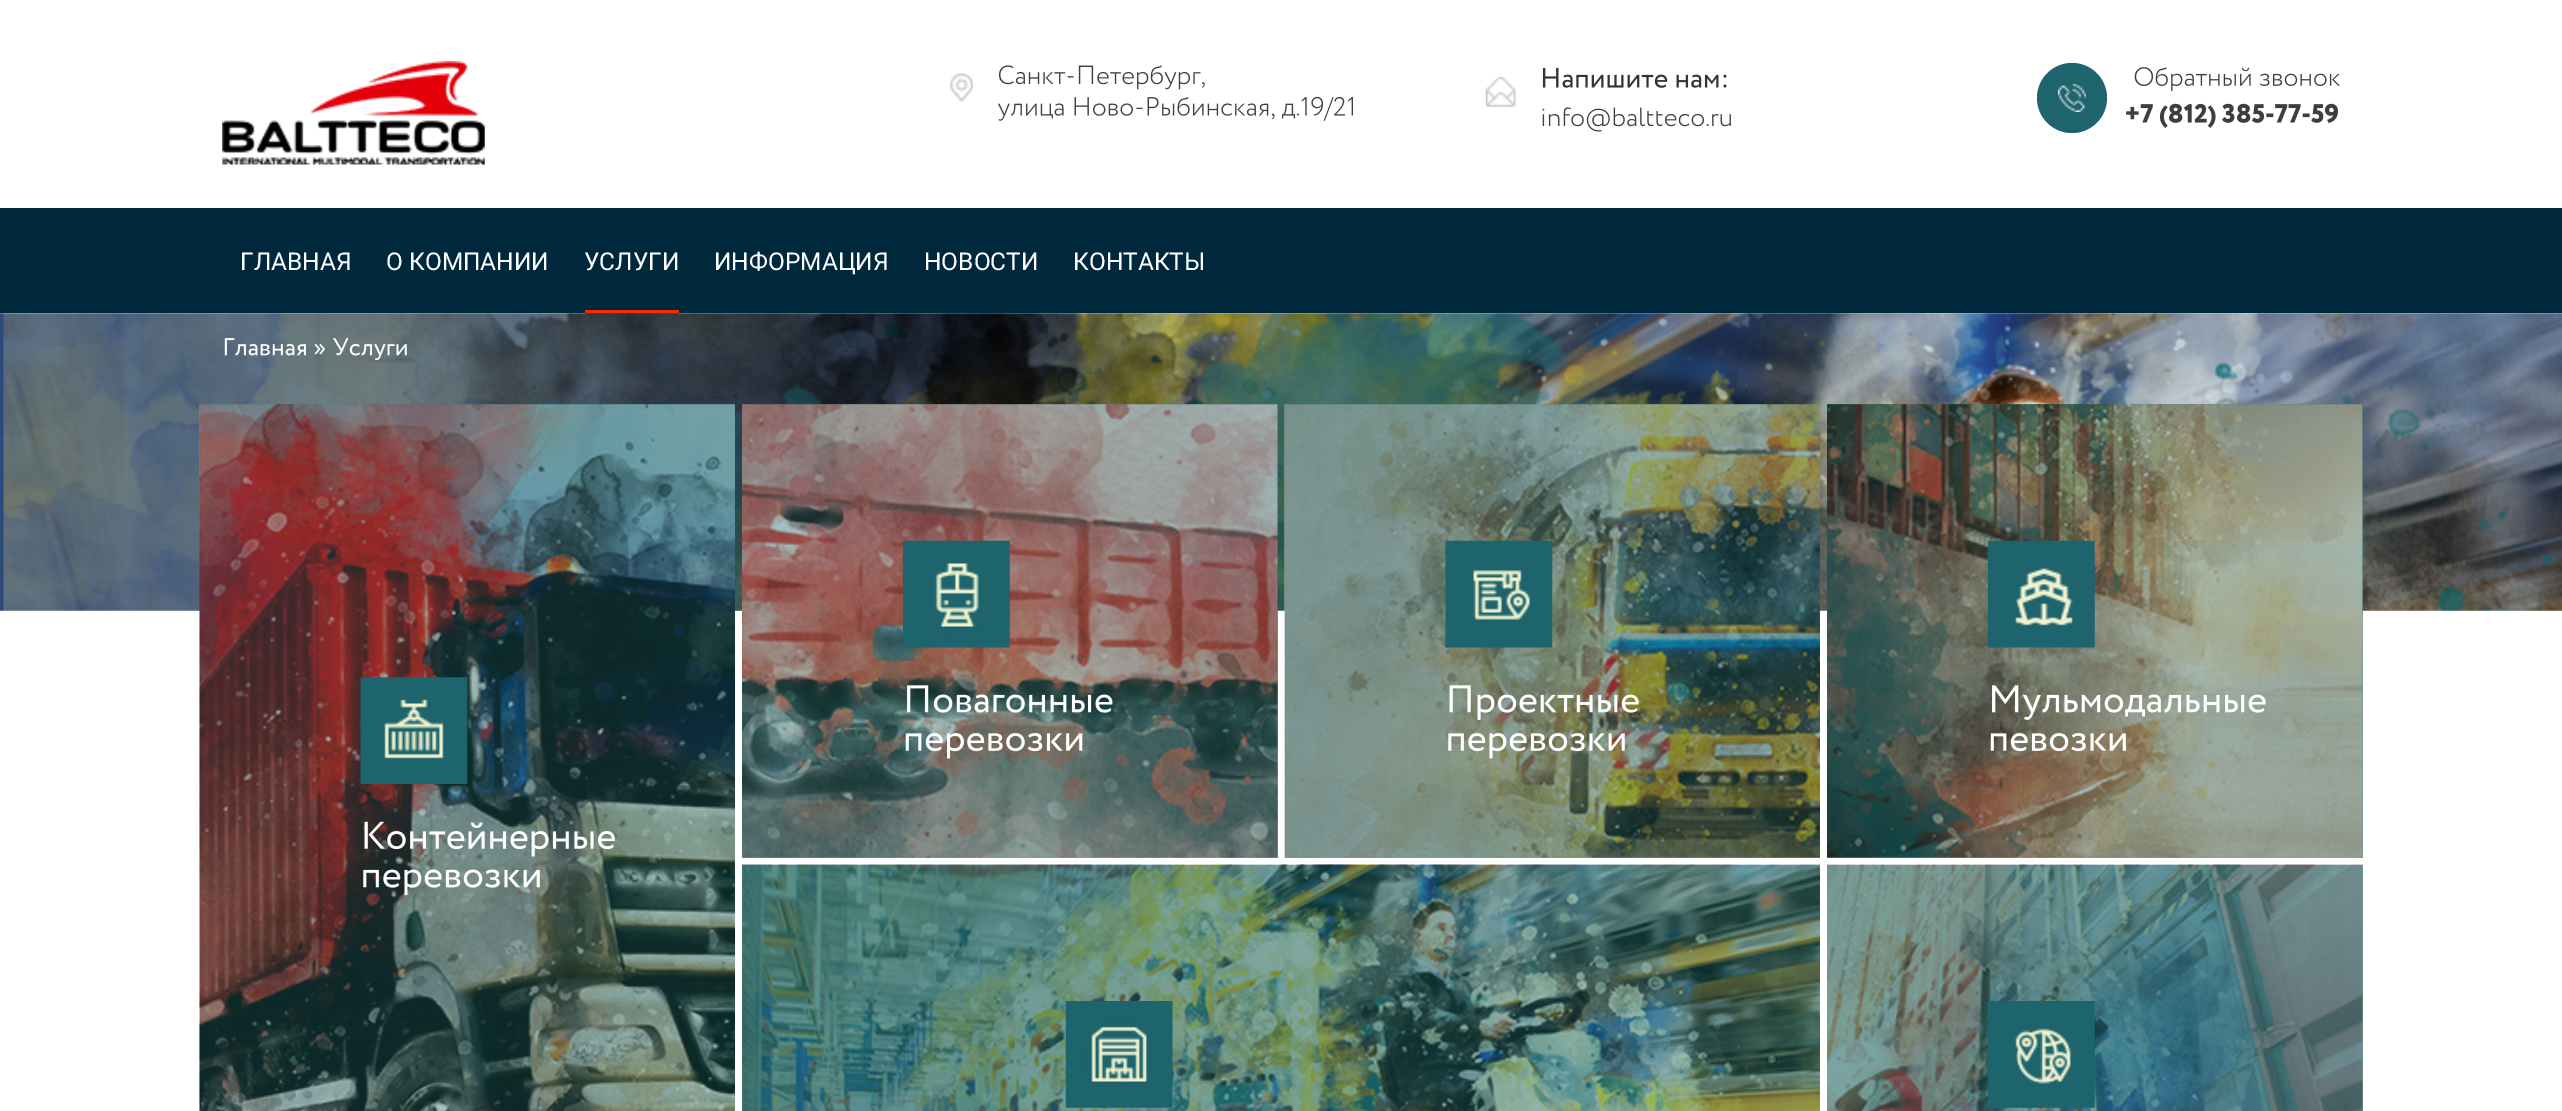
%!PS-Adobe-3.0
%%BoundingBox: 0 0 2562 1111
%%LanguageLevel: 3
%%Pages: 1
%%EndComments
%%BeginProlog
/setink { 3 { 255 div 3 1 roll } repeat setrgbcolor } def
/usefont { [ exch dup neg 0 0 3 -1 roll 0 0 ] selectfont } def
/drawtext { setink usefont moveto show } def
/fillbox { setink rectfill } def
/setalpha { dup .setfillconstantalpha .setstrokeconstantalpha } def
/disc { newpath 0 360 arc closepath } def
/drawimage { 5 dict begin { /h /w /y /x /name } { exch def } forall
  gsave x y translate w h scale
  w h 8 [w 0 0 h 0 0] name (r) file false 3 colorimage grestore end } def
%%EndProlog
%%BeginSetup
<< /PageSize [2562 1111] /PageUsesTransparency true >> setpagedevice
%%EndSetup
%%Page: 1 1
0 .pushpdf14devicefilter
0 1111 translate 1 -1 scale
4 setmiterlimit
0 0 2562 1111 255 255 255 fillbox
(assets/img1.rgb) 222 61 263 104 drawimage
(assets/img2.rgb) 950 73 23 29 drawimage
(assets/img3.rgb) 998 65 207 25 drawimage
(assets/img4.rgb) 998 96 355 25 drawimage
(assets/img5.rgb) 1485 77 31 30 drawimage
(assets/img6.rgb) 1542 67 185 21 drawimage
(assets/img7.rgb) 1542 107 189 25 drawimage
30 100 109 setink
2072 98 35 disc fill
(assets/img8.rgb) 2058 84 28 28 drawimage
(assets/img9.rgb) 2134 67 206 24 drawimage
(assets/img10.rgb) 2126 103 212 25 drawimage
0 208 2562 105 0 40 60 fillbox
(ГЛАВНАЯ) 240 270 /Roboto-Regular 24.5 255 255 255 drawtext
(О КОМПАНИИ) 386 270 /Roboto-Regular 24.5 255 255 255 drawtext
(УСЛУГИ) 584 270 /Roboto-Regular 24.5 255 255 255 drawtext
585 310 94 4 247 42 0 fillbox
(ИНФОРМАЦИЯ) 714 270 /Roboto-Regular 24.5 255 255 255 drawtext
(НОВОСТИ) 924 270 /Roboto-Regular 24.5 255 255 255 drawtext
(КОНТАКТЫ) 1073 270 /Roboto-Regular 24.5 255 255 255 drawtext
(assets/img11.rgb) 0 313 2562 298 drawimage
(assets/img12.rgb) 224 338 82 18 drawimage
(assets/img13.rgb) 314 343 12 12 drawimage
(assets/img14.rgb) 333 338 74 23 drawimage
(assets/img15.rgb) 199 404 536 707 drawimage
0.4 setalpha
200 404 535 707 30 101 100 fillbox
1 setalpha
(assets/img16.rgb) 360 677 108 107 drawimage
(assets/img17.rgb) 364 821 251 36 drawimage
(assets/img18.rgb) 363 869 177 26 drawimage
0.4 setalpha
742 404 536 454 30 101 100 fillbox
1 setalpha
(assets/img19.rgb) 742 404 536 454 drawimage
0.4 setalpha
742 404 536 454 30 101 100 fillbox
1 setalpha
(assets/img20.rgb) 903 540 107 108 drawimage
(assets/img21.rgb) 907 685 206 28 drawimage
(assets/img22.rgb) 905 733 178 26 drawimage
0.4 setalpha
1285 404 535 454 30 101 100 fillbox
1 setalpha
(assets/img23.rgb) 1284 404 536 454 drawimage
0.4 setalpha
1285 404 535 454 30 101 100 fillbox
1 setalpha
(assets/img24.rgb) 1445 540 108 108 drawimage
(assets/img25.rgb) 1449 685 190 35 drawimage
(assets/img26.rgb) 1448 733 177 26 drawimage
(assets/img27.rgb) 742 864 1078 247 drawimage
(assets/img28.rgb) 1065 1001 108 107 drawimage
0.4 setalpha
1827 404 536 454 30 101 100 fillbox
1 setalpha
(assets/img29.rgb) 1827 404 536 454 drawimage
0.4 setalpha
1827 404 536 454 30 101 100 fillbox
1 setalpha
(assets/img30.rgb) 1988 540 107 108 drawimage
(assets/img31.rgb) 1992 685 274 35 drawimage
(assets/img32.rgb) 1990 733 136 19 drawimage
2362 865 1 246 111 157 156 fillbox
(assets/img33.rgb) 1827 864 536 247 drawimage
(assets/img34.rgb) 1988 1001 107 107 drawimage
.poppdf14devicefilter showpage
%%EOF
